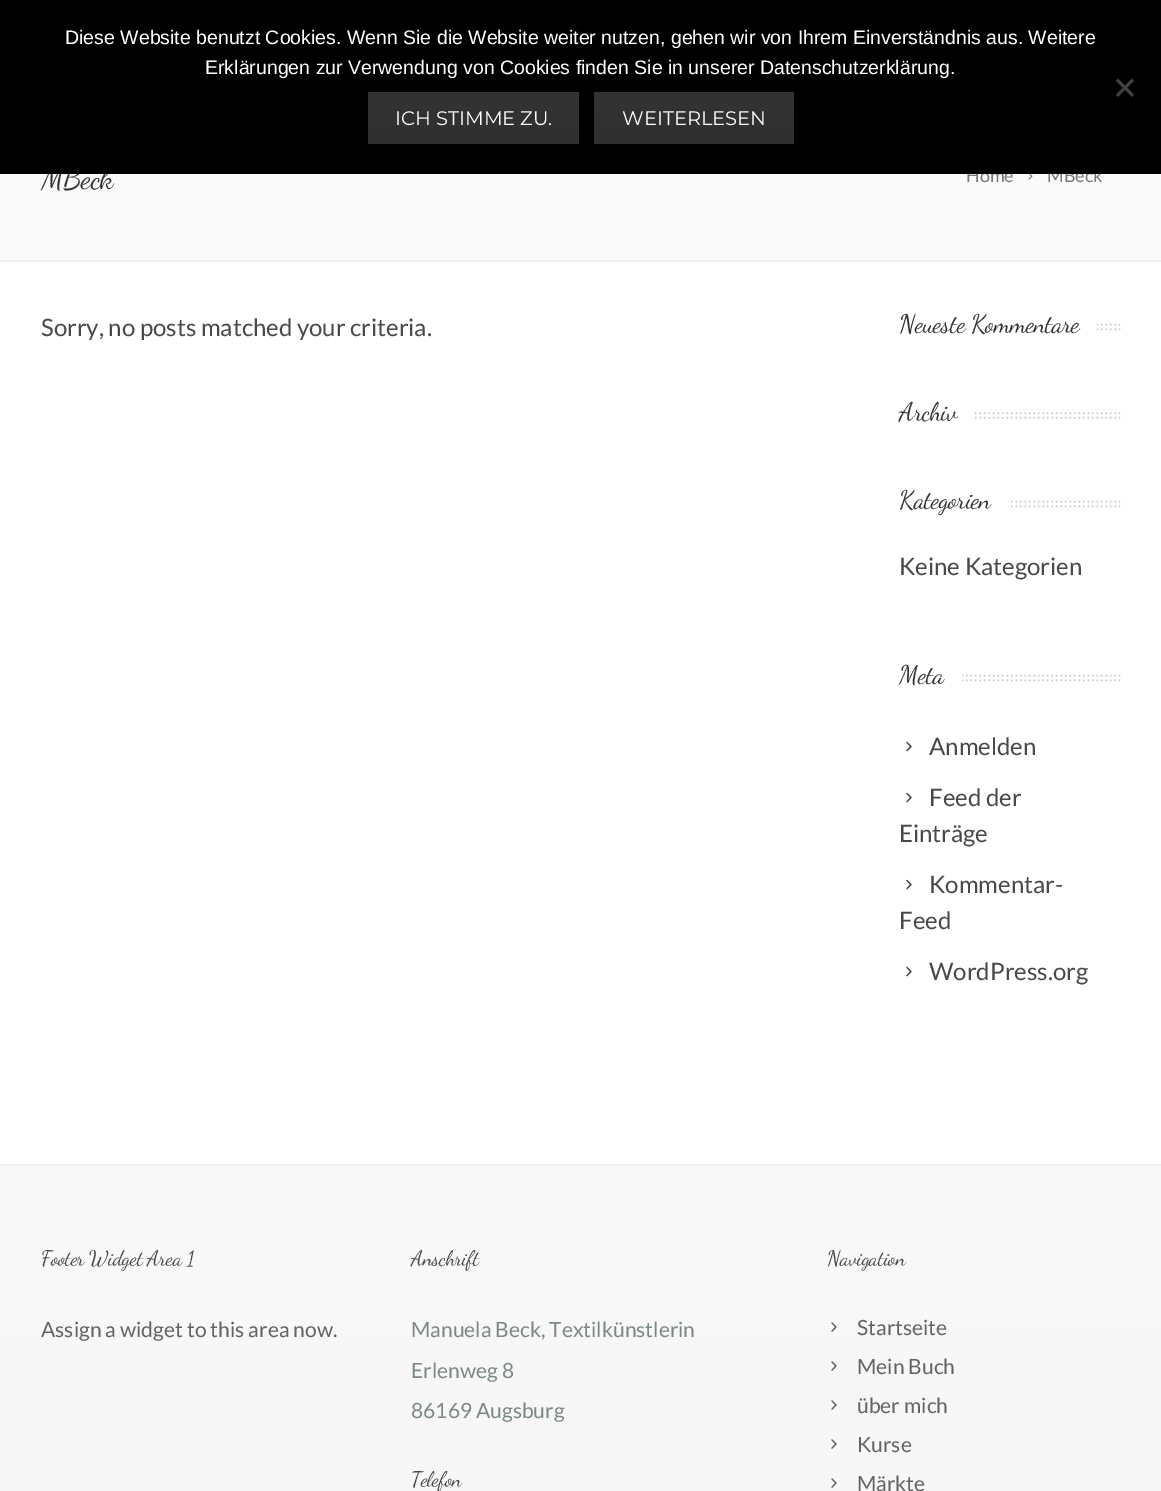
%!PS-Adobe-3.0
%%BoundingBox: 0 0 1161 1491
%%LanguageLevel: 3
%%Pages: 1
%%EndComments
%%BeginProlog
/setink { 3 { 255 div 3 1 roll } repeat setrgbcolor } def
/usefont { [ exch dup neg 0 0 3 -1 roll 0 0 ] selectfont } def
/drawtext { setink usefont moveto show } def
/fillbox { setink rectfill } def
/drawimage { 5 dict begin { /h /w /y /x /name } { exch def } forall
  gsave x y translate w h scale
  w h 8 [w 0 0 h 0 0] name (r) file false 3 colorimage grestore end } def
%%EndProlog
%%BeginSetup
<< /PageSize [1161 1491] >> setpagedevice
%%EndSetup
%%Page: 1 1
0 1491 translate 1 -1 scale
4 setmiterlimit
0 0 1161 1491 255 255 255 fillbox
0 174 1161 86 250 250 250 fillbox
/DancingScript-Regular 30 usefont
51 51 51 setink
41 188 moveto -0.5 0 (MBeck) ashow
(Home) 966 182 /Lato-Regular 18 119 119 119 drawtext
(MBeck) 1047 182 /Lato-Regular 18 119 119 119 drawtext
0 0 1161 174 0 0 0 fillbox
(Diese Website benutzt Cookies. Wenn Sie die Website weiter nutzen, gehen wir von Ihrem Einverständnis aus. Weitere) 65 44 /LiberationSans-Regular 19.5 255 255 255 drawtext
(Erklärungen zur Verwendung von Cookies finden Sie in unserer Datenschutzerklärung.) 205 74 /LiberationSans-Regular 19.5 255 255 255 drawtext
64 64 64 setink
1132 78.5 moveto 1134 81 lineto 1118 97 lineto 1116 94.5 lineto closepath fill
1116 81 moveto 1118 78.5 lineto 1134 94.5 lineto 1132 97 lineto closepath fill
gsave 368 92 moveto 579 92 lineto 579 144 lineto 368 144 lineto closepath clip newpath
<< /ShadingType 2 /ColorSpace /DeviceRGB /Coords [473 91 473 144] /Extend [true true] /Function << /FunctionType 2 /Domain [0 1] /C0 [0.2 0.2 0.2] /C1 [0.188 0.188 0.188] /N 1 >> >> shfill grestore
(ICH STIMME ZU.) 395 125 /Montserrat-Regular 19.5 255 255 255 drawtext
gsave 594 92 moveto 794 92 lineto 794 144 lineto 594 144 lineto closepath clip newpath
<< /ShadingType 2 /ColorSpace /DeviceRGB /Coords [694 91 694 144] /Extend [true true] /Function << /FunctionType 2 /Domain [0 1] /C0 [0.2 0.2 0.2] /C1 [0.188 0.188 0.188] /N 1 >> >> shfill grestore
(WEITERLESEN) 622 125 /Montserrat-Regular 19.5 255 255 255 drawtext
0 260 1161 2 238 238 238 fillbox
(assets/img1.rgb) 1028 174 5 6 drawimage
(Sorry, no posts matched your criteria.) 41 336 /Lato-Regular 24 73 73 73 drawtext
(assets/img2.rgb) 898 323 223 8 drawimage
899 323 198 8 255 255 255 fillbox
/DancingScript-Regular 25.5 usefont
51 51 51 setink
899 332 moveto -0.5 0 (Neueste Kommentare) ashow
(assets/img3.rgb) 898 412 223 7 drawimage
899 412 76 7 255 255 255 fillbox
51 51 51 setink
899 420 moveto -0.5 0 (Archiv) ashow
(assets/img2.rgb) 898 500 223 8 drawimage
899 500 109 8 255 255 255 fillbox
51 51 51 setink
899 508 moveto -0.5 0 (Kategorien) ashow
(Keine Kategorien) 899 575 /Lato-Regular 24 73 73 73 drawtext
(assets/img2.rgb) 898 674 223 8 drawimage
899 674 63 8 255 255 255 fillbox
/DancingScript-Regular 25.5 usefont
51 51 51 setink
899 683 moveto -0.5 0 (Meta) ashow
(assets/img4.rgb) 906 741 6 11 drawimage
(Anmelden) 929 755 /Lato-Regular 24 73 73 73 drawtext
(assets/img4.rgb) 906 792 6 11 drawimage
(Feed der) 929 806 /Lato-Regular 24 73 73 73 drawtext
(Einträge) 899 842 /Lato-Regular 24 73 73 73 drawtext
(assets/img4.rgb) 906 879 6 11 drawimage
(Kommentar-) 929 893 /Lato-Regular 24 73 73 73 drawtext
(Feed) 899 929 /Lato-Regular 24 73 73 73 drawtext
(assets/img4.rgb) 906 966 6 11 drawimage
(WordPress.org) 929 980 /Lato-Regular 24 73 73 73 drawtext
gsave 0 1166 moveto 1161 1166 lineto 1161 1491 lineto 0 1491 lineto closepath clip newpath
<< /ShadingType 2 /ColorSpace /DeviceRGB /Coords [580 1166 581 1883] /Extend [true true] /Function << /FunctionType 2 /Domain [0 1] /C0 [0.976 0.976 0.976] /C1 [0.957 0.957 0.957] /N 1 >> >> shfill grestore
0 1164 1161 2 238 238 238 fillbox
/DancingScript-Regular 21 usefont
73 73 73 setink
41 1265 moveto -0.4 0 (Footer Widget Area 1) ashow
(Assign a widget to this area now.) 41 1337 /Lato-Regular 21 99 99 99 drawtext
/DancingScript-Regular 21 usefont
73 73 73 setink
411 1265 moveto -0.4 0 (Anschrift) ashow
(Manuela Beck, Textilkünstlerin) 411 1337 /Lato-Regular 21 123 136 135 drawtext
(Erlenweg 8) 411 1378 /Lato-Regular 21 123 136 135 drawtext
(86169 Augsburg) 411 1418 /Lato-Regular 21 123 136 135 drawtext
/DancingScript-Regular 21 usefont
73 73 73 setink
411 1486 moveto -0.4 0 (Telefon) ashow
827 1265 moveto -0.4 0 (Navigation) ashow
(assets/img5.rgb) 831 1322 6 10 drawimage
(Startseite) 857 1335 /Lato-Regular 21 99 99 99 drawtext
(assets/img5.rgb) 831 1361 6 10 drawimage
(Mein Buch) 857 1374 /Lato-Regular 21 99 99 99 drawtext
(assets/img6.rgb) 831 1400 6 10 drawimage
(über mich) 857 1413 /Lato-Regular 21 99 99 99 drawtext
(assets/img6.rgb) 831 1439 6 10 drawimage
(Kurse) 857 1452 /Lato-Regular 21 99 99 99 drawtext
(assets/img6.rgb) 831 1478 6 10 drawimage
(Märkte) 857 1491 /Lato-Regular 21 99 99 99 drawtext
showpage
%%EOF
